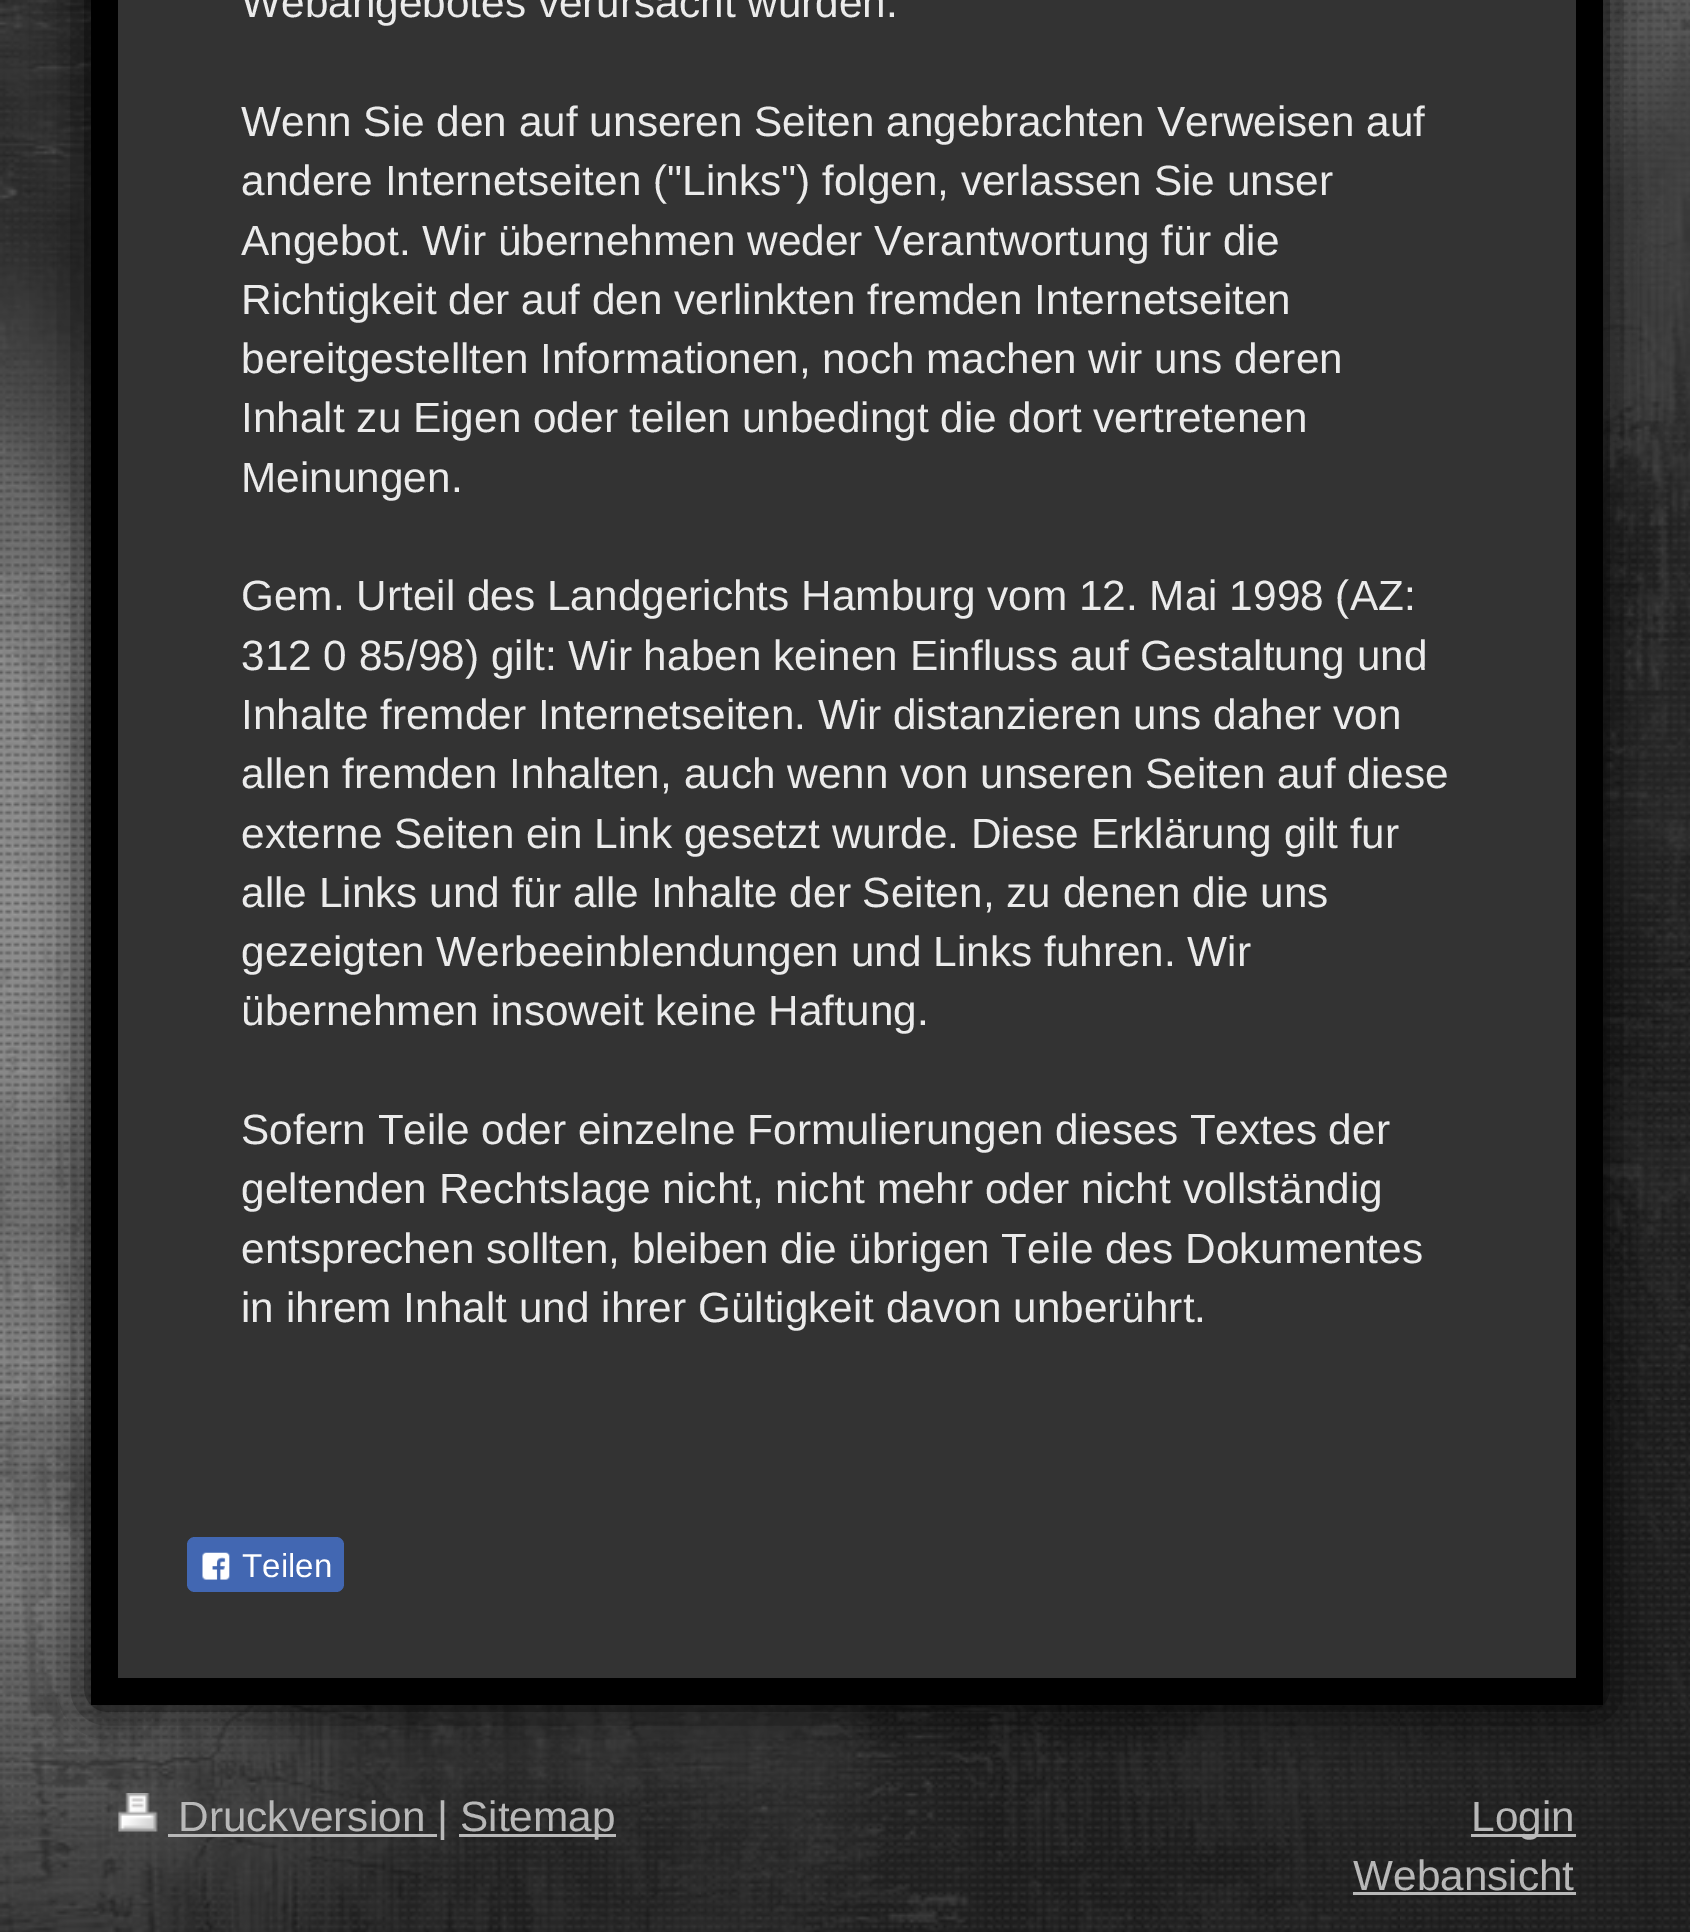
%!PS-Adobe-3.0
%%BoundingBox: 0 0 1690 1932
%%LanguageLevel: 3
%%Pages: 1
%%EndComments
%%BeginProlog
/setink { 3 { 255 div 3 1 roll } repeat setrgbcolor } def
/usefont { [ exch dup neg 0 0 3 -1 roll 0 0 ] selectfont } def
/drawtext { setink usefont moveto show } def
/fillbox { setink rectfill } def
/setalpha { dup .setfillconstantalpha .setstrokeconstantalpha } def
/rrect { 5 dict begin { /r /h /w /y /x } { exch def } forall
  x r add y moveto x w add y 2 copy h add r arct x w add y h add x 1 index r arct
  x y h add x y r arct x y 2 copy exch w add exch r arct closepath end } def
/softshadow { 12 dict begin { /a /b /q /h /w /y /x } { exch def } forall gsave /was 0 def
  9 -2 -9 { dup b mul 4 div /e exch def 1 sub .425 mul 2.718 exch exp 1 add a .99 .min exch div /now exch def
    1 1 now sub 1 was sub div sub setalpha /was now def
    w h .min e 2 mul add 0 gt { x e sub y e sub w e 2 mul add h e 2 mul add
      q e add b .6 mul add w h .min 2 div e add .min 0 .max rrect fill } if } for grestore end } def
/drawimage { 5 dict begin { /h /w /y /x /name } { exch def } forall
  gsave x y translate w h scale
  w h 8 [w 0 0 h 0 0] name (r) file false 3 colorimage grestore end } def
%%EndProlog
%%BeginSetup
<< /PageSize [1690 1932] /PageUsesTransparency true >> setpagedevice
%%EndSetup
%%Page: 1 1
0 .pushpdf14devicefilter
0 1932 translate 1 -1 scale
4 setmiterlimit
0 0 1690 1932 255 255 255 fillbox
(assets/img1.rgb) 0 0 1690 1932 drawimage
0 0 0 setink
91 -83 1512 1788 0 27.5 1 softshadow
91 0 1512 1705 0 0 0 fillbox
118 0 1458 1678 51 51 51 fillbox
(Webangebotes verursacht wurden.) 241 17 /LiberationSans-Regular 42.35 235 235 235 drawtext
(Wenn Sie den auf unseren Seiten angebrachten Verweisen auf) 241 136 /LiberationSans-Regular 42.35 235 235 235 drawtext
(andere Internetseiten \("Links"\) folgen, verlassen Sie unser) 241 195 /LiberationSans-Regular 42.35 235 235 235 drawtext
(Angebot. Wir übernehmen weder Verantwortung für die) 241 255 /LiberationSans-Regular 42.35 235 235 235 drawtext
(Richtigkeit der auf den verlinkten fremden Internetseiten) 241 314 /LiberationSans-Regular 42.35 235 235 235 drawtext
(bereitgestellten Informationen, noch machen wir uns deren) 241 373 /LiberationSans-Regular 42.35 235 235 235 drawtext
(Inhalt zu Eigen oder teilen unbedingt die dort vertretenen) 241 432 /LiberationSans-Regular 42.35 235 235 235 drawtext
(Meinungen.) 241 492 /LiberationSans-Regular 42.35 235 235 235 drawtext
(Gem. Urteil des Landgerichts Hamburg vom 12. Mai 1998 \(AZ:) 241 610 /LiberationSans-Regular 42.35 235 235 235 drawtext
(312 0 85/98\) gilt: Wir haben keinen Einfluss auf Gestaltung und) 241 670 /LiberationSans-Regular 42.35 235 235 235 drawtext
(Inhalte fremder Internetseiten. Wir distanzieren uns daher von) 241 729 /LiberationSans-Regular 42.35 235 235 235 drawtext
(allen fremden Inhalten, auch wenn von unseren Seiten auf diese) 241 788 /LiberationSans-Regular 42.35 235 235 235 drawtext
(externe Seiten ein Link gesetzt wurde. Diese Erklärung gilt fur) 241 848 /LiberationSans-Regular 42.35 235 235 235 drawtext
(alle Links und für alle Inhalte der Seiten, zu denen die uns) 241 907 /LiberationSans-Regular 42.35 235 235 235 drawtext
(gezeigten Werbeeinblendungen und Links fuhren. Wir) 241 966 /LiberationSans-Regular 42.35 235 235 235 drawtext
(übernehmen insoweit keine Haftung.) 241 1025 /LiberationSans-Regular 42.35 235 235 235 drawtext
(Sofern Teile oder einzelne Formulierungen dieses Textes der) 241 1144 /LiberationSans-Regular 42.35 235 235 235 drawtext
(geltenden Rechtslage nicht, nicht mehr oder nicht vollständig) 241 1203 /LiberationSans-Regular 42.35 235 235 235 drawtext
(entsprechen sollten, bleiben die übrigen Teile des Dokumentes) 241 1263 /LiberationSans-Regular 42.35 235 235 235 drawtext
(in ihrem Inhalt und ihrer Gültigkeit davon unberührt.) 241 1322 /LiberationSans-Regular 42.35 235 235 235 drawtext
66 103 178 setink
187 1537 157 55 8 rrect fill
(assets/img2.rgb) 202 1552 28 28 drawimage
(Teilen) 242 1577 /LiberationSans-Regular 33 255 255 255 drawtext
(assets/img3.rgb) 118 1793 40 39 drawimage
168 1834 269 3 184 184 184 fillbox
(Druckversion |) 178 1831 /LiberationSans-Regular 42.35 184 184 184 drawtext
459 1834 157 3 184 184 184 fillbox
(Sitemap) 460 1831 /LiberationSans-Regular 42.35 184 184 184 drawtext
1471 1834 105 3 184 184 184 fillbox
(Login) 1471 1831 /LiberationSans-Regular 42.35 184 184 184 drawtext
(Webansicht) 1353 1890 /LiberationSans-Regular 42.35 184 184 184 drawtext
1353 1892 223 3 184 184 184 fillbox
.poppdf14devicefilter showpage
%%EOF
